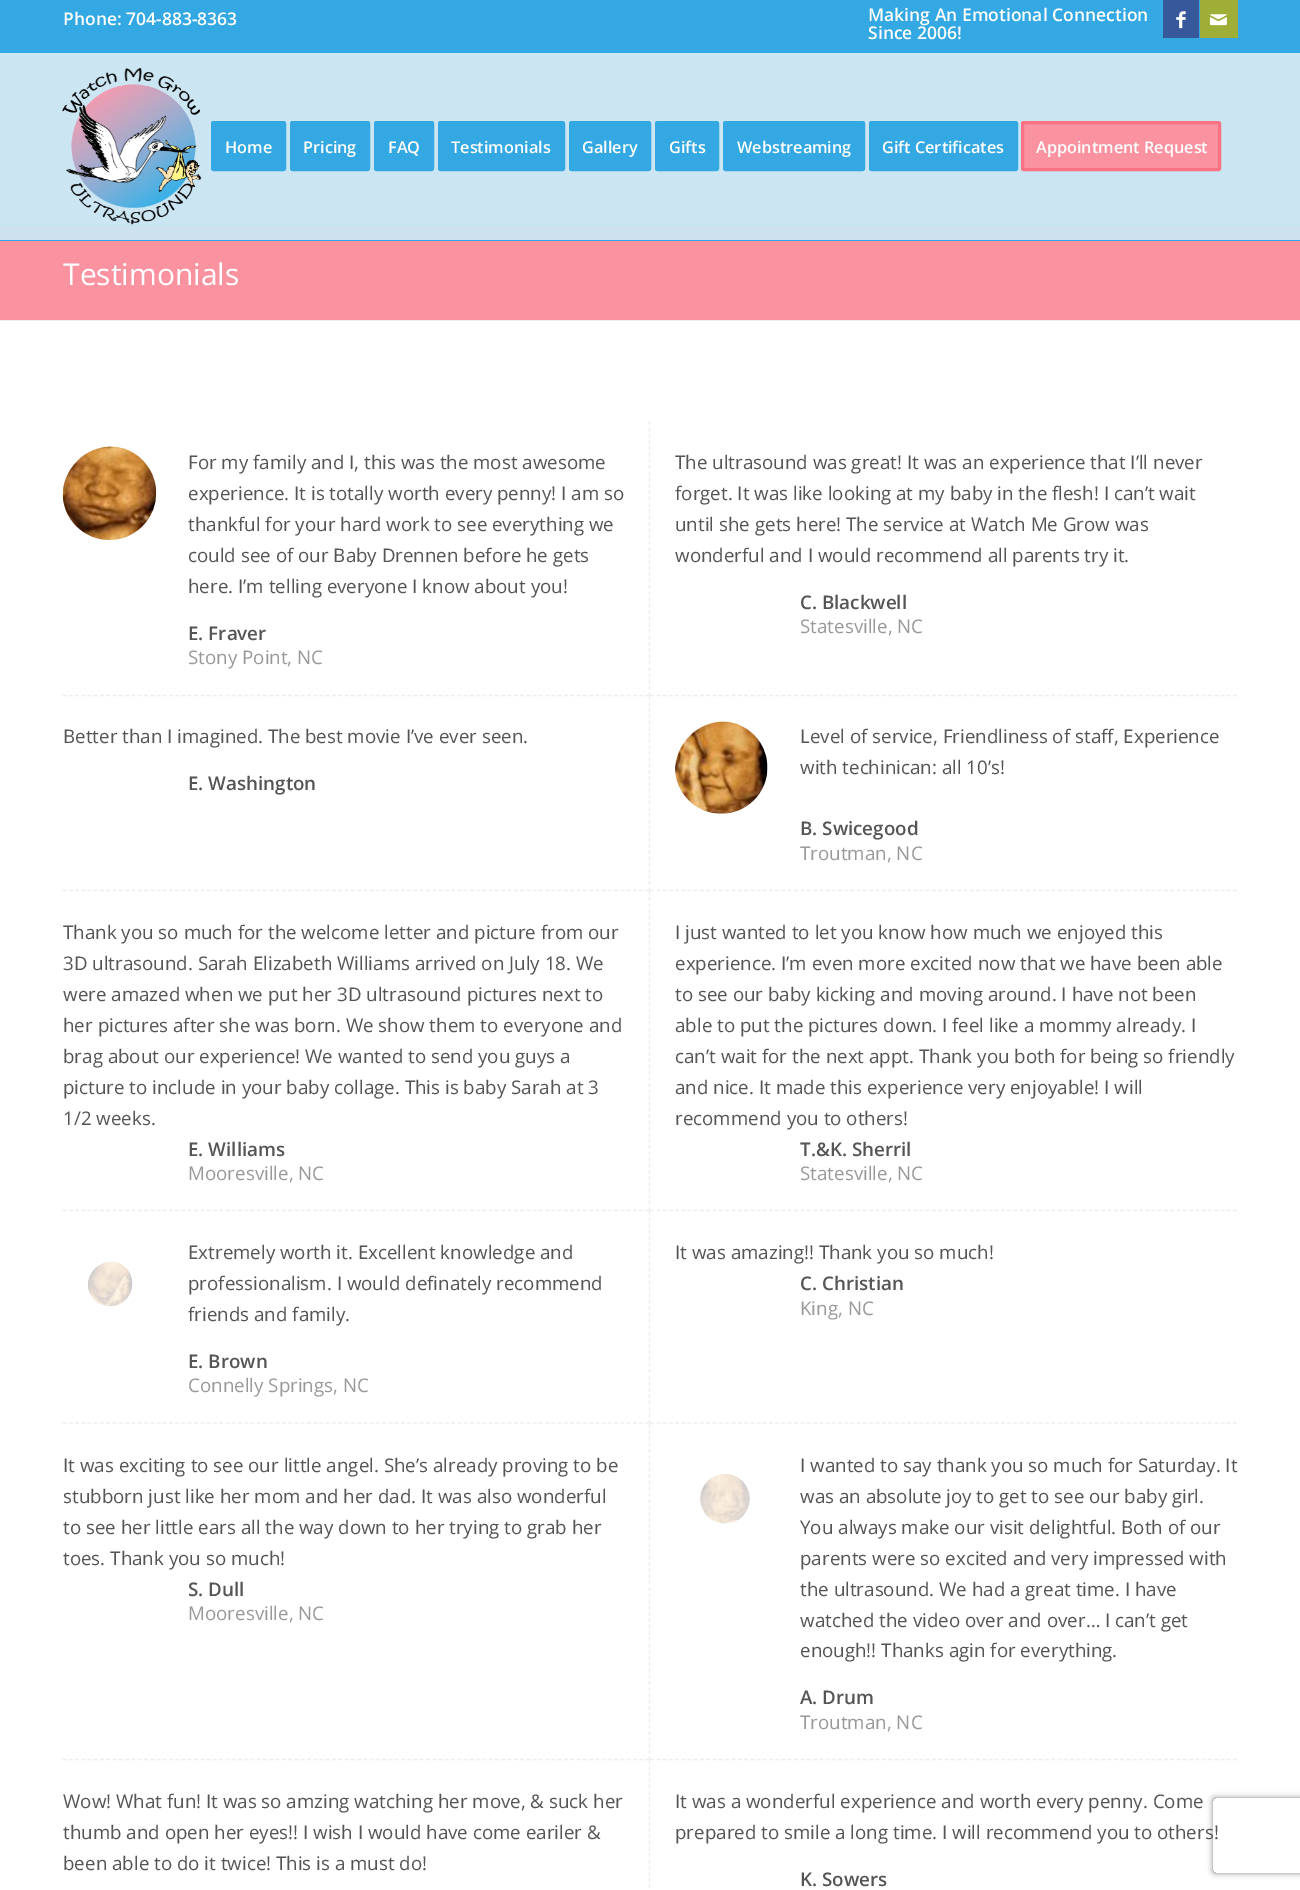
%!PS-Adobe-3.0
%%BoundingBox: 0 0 1300 1890
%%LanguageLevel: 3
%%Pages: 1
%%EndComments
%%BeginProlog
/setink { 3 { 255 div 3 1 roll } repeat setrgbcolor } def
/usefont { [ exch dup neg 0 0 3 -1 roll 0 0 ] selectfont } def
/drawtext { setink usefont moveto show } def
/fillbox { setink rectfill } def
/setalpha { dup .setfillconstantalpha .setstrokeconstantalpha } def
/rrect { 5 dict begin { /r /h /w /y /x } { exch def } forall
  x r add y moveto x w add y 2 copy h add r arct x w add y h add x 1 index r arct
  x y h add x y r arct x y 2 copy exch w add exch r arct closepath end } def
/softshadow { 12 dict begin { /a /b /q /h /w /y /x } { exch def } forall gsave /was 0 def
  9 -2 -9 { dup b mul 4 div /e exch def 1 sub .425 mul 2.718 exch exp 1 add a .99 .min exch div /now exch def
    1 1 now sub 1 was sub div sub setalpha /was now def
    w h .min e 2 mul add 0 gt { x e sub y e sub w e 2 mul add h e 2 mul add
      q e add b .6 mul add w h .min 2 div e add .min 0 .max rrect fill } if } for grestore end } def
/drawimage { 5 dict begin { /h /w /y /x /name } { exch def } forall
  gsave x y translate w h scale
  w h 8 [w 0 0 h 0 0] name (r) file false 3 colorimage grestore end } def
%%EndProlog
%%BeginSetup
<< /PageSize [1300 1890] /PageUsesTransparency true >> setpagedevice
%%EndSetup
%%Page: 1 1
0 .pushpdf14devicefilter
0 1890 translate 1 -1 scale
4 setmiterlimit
0 0 1300 1890 203 229 242 fillbox
0 0 1300 53 51 168 226 fillbox
(Phone: 704-883-8363) 63 25 /OpenSans-SemiBold 17.5 255 255 255 drawtext
(Making An Emotional Connection) 868 21 /OpenSans-SemiBold 17.5 255 255 255 drawtext
(Since 2006!) 868 39 /OpenSans-SemiBold 17.5 255 255 255 drawtext
1163 0 36 38 55 88 155 fillbox
(assets/img1.rgb) 1176 11 10 18 drawimage
1200 0 38 38 159 174 55 fillbox
(assets/img2.rgb) 1210 14 17 12 drawimage
0 240 1300 1 51 168 226 fillbox
(assets/img3.rgb) 62 68 140 157 drawimage
212.5 122.5 72 47 1 rrect gsave fill grestore
3 setlinewidth
stroke
(Home) 225 153 /OpenSans-SemiBold 16.25 255 255 255 drawtext
51 168 226 setink
291.5 122.5 77 47 1 rrect gsave fill grestore
stroke
(Pricing) 303 153 /OpenSans-SemiBold 16.25 255 255 255 drawtext
51 168 226 setink
375.5 122.5 57 47 1 rrect gsave fill grestore
stroke
(FAQ) 388 153 /OpenSans-SemiBold 16.25 255 255 255 drawtext
51 168 226 setink
439.5 122.5 124 47 1 rrect gsave fill grestore
stroke
(Testimonials) 451 153 /OpenSans-SemiBold 16.25 255 255 255 drawtext
51 168 226 setink
570.5 122.5 79 47 1 rrect gsave fill grestore
stroke
(Gallery) 582 153 /OpenSans-SemiBold 16.25 255 255 255 drawtext
51 168 226 setink
656.5 122.5 61 47 1 rrect gsave fill grestore
stroke
(Gifts) 669 153 /OpenSans-SemiBold 16.25 255 255 255 drawtext
51 168 226 setink
724.5 122.5 139 47 1 rrect gsave fill grestore
stroke
(Webstreaming) 737 153 /OpenSans-SemiBold 16.25 255 255 255 drawtext
51 168 226 setink
870.5 122.5 146 47 1 rrect gsave fill grestore
stroke
(Gift Certificates) 882 153 /OpenSans-SemiBold 16.25 255 255 255 drawtext
250 146 160 setink
1022.5 122.5 197 47 1 rrect gsave fill grestore
250 114 132 setink
stroke
(Appointment Request) 1036 153 /OpenSans-SemiBold 16.25 255 255 255 drawtext
0 241 1300 79 250 146 160 fillbox
0 226 1300 14 205 225 238 fillbox
0 225 1300 1 195 226 241 fillbox
(Testimonials) 63 285 /OpenSans-Regular 30 255 255 255 drawtext
0 321 1300 1569 255 255 255 fillbox
0 320 1300 1 238 238 238 fillbox
1.2 setlinewidth
[3.75 2.56] 0 setdash
649.5 421 moveto 649.5 696 lineto stroke
[3.75 2.52] 0 setdash
62.5 695.5 moveto 650 695.5 lineto stroke
(assets/img4.rgb) 62 446 95 94 drawimage
(For my family and I, this was the most awesome) 188 469 /OpenSans-Regular 18.75 85 85 85 drawtext
(experience. It is totally worth every penny! I am so) 188 500 /OpenSans-Regular 18.75 85 85 85 drawtext
(thankful for your hard work to see everything we) 188 531 /OpenSans-Regular 18.75 85 85 85 drawtext
(could see of our Baby Drennen before he gets) 188 562 /OpenSans-Regular 18.75 85 85 85 drawtext
(here. I’m telling everyone I know about you!) 188 593 /OpenSans-Regular 18.75 85 85 85 drawtext
(E. Fraver) 188 640 /OpenSans-SemiBold 18.75 85 85 85 drawtext
(Stony Point, NC) 188 664 /OpenSans-Regular 18.75 153 153 153 drawtext
238 238 238 setink
650 695.5 moveto 1237.5 695.5 lineto stroke
(The ultrasound was great! It was an experience that I’ll never) 675 469 /OpenSans-Regular 18.75 85 85 85 drawtext
(forget. It was like looking at my baby in the flesh! I can’t wait) 675 500 /OpenSans-Regular 18.75 85 85 85 drawtext
(until she gets here! The service at Watch Me Grow was) 675 531 /OpenSans-Regular 18.75 85 85 85 drawtext
(wonderful and I would recommend all parents try it.) 675 562 /OpenSans-Regular 18.75 85 85 85 drawtext
(C. Blackwell) 800 609 /OpenSans-SemiBold 18.75 85 85 85 drawtext
(Statesville, NC) 800 633 /OpenSans-Regular 18.75 153 153 153 drawtext
238 238 238 setink
[3.75 2.42] 0 setdash
649.5 696 moveto 649.5 891 lineto stroke
[3.75 2.52] 0 setdash
62.5 890.5 moveto 650 890.5 lineto stroke
(Better than I imagined. The best movie I’ve ever seen.) 63 743 /OpenSans-Regular 18.75 85 85 85 drawtext
(E. Washington) 188 790 /OpenSans-SemiBold 18.75 85 85 85 drawtext
238 238 238 setink
650 890.5 moveto 1237.5 890.5 lineto stroke
(assets/img5.rgb) 675 721 93 93 drawimage
(Level of service, Friendliness of staff, Experience) 800 743 /OpenSans-Regular 18.75 85 85 85 drawtext
(with techinican: all 10’s!) 800 774 /OpenSans-Regular 18.75 85 85 85 drawtext
(B. Swicegood) 800 835 /OpenSans-SemiBold 18.75 85 85 85 drawtext
(Troutman, NC) 800 860 /OpenSans-Regular 18.75 153 153 153 drawtext
238 238 238 setink
[3.75 2.45] 0 setdash
649.5 891 moveto 649.5 1211 lineto stroke
[3.75 2.52] 0 setdash
62.5 1210.5 moveto 650 1210.5 lineto stroke
(Thank you so much for the welcome letter and picture from our) 63 939 /OpenSans-Regular 18.75 85 85 85 drawtext
(3D ultrasound. Sarah Elizabeth Williams arrived on July 18. We) 63 970 /OpenSans-Regular 18.75 85 85 85 drawtext
(were amazed when we put her 3D ultrasound pictures next to) 63 1001 /OpenSans-Regular 18.75 85 85 85 drawtext
(her pictures after she was born. We show them to everyone and) 63 1032 /OpenSans-Regular 18.75 85 85 85 drawtext
(brag about our experience! We wanted to send you guys a) 63 1063 /OpenSans-Regular 18.75 85 85 85 drawtext
(picture to include in your baby collage. This is baby Sarah at 3) 63 1094 /OpenSans-Regular 18.75 85 85 85 drawtext
(1/2 weeks.) 63 1125 /OpenSans-Regular 18.75 85 85 85 drawtext
(E. Williams) 188 1156 /OpenSans-SemiBold 18.75 85 85 85 drawtext
(Mooresville, NC) 188 1180 /OpenSans-Regular 18.75 153 153 153 drawtext
238 238 238 setink
650 1210.5 moveto 1237.5 1210.5 lineto stroke
(I just wanted to let you know how much we enjoyed this) 675 939 /OpenSans-Regular 18.75 85 85 85 drawtext
(experience. I’m even more excited now that we have been able) 675 970 /OpenSans-Regular 18.75 85 85 85 drawtext
(to see our baby kicking and moving around. I have not been) 675 1001 /OpenSans-Regular 18.75 85 85 85 drawtext
(able to put the pictures down. I feel like a mommy already. I) 675 1032 /OpenSans-Regular 18.75 85 85 85 drawtext
(can’t wait for the next appt. Thank you both for being so friendly) 675 1063 /OpenSans-Regular 18.75 85 85 85 drawtext
(and nice. It made this experience very enjoyable! I will) 675 1094 /OpenSans-Regular 18.75 85 85 85 drawtext
(recommend you to others!) 675 1125 /OpenSans-Regular 18.75 85 85 85 drawtext
(T.&K. Sherril) 800 1156 /OpenSans-SemiBold 18.75 85 85 85 drawtext
(Statesville, NC) 800 1180 /OpenSans-Regular 18.75 153 153 153 drawtext
238 238 238 setink
[3.75 2.58] 0 setdash
649.5 1211 moveto 649.5 1424 lineto stroke
[3.75 2.52] 0 setdash
62.5 1423 moveto 650 1423 lineto stroke
(assets/img6.rgb) 88 1261 45 45 drawimage
(Extremely worth it. Excellent knowledge and) 188 1259 /OpenSans-Regular 18.75 85 85 85 drawtext
(professionalism. I would definately recommend) 188 1290 /OpenSans-Regular 18.75 85 85 85 drawtext
(friends and family.) 188 1321 /OpenSans-Regular 18.75 85 85 85 drawtext
(E. Brown) 188 1368 /OpenSans-SemiBold 18.75 85 85 85 drawtext
(Connelly Springs, NC) 188 1392 /OpenSans-Regular 18.75 153 153 153 drawtext
238 238 238 setink
650 1423 moveto 1237.5 1423 lineto stroke
(It was amazing!! Thank you so much!) 675 1259 /OpenSans-Regular 18.75 85 85 85 drawtext
(C. Christian) 800 1290 /OpenSans-SemiBold 18.75 85 85 85 drawtext
(King, NC) 800 1315 /OpenSans-Regular 18.75 153 153 153 drawtext
238 238 238 setink
649.5 1424 moveto 649.5 1760 lineto stroke
62.5 1759.5 moveto 650 1759.5 lineto stroke
(It was exciting to see our little angel. She’s already proving to be) 63 1472 /OpenSans-Regular 18.75 85 85 85 drawtext
(stubborn just like her mom and her dad. It was also wonderful) 63 1503 /OpenSans-Regular 18.75 85 85 85 drawtext
(to see her little ears all the way down to her trying to grab her) 63 1534 /OpenSans-Regular 18.75 85 85 85 drawtext
(toes. Thank you so much!) 63 1565 /OpenSans-Regular 18.75 85 85 85 drawtext
(S. Dull) 188 1596 /OpenSans-SemiBold 18.75 85 85 85 drawtext
(Mooresville, NC) 188 1620 /OpenSans-Regular 18.75 153 153 153 drawtext
238 238 238 setink
650 1759.5 moveto 1237.5 1759.5 lineto stroke
(assets/img7.rgb) 700 1474 50 50 drawimage
(I wanted to say thank you so much for Saturday. It) 800 1472 /OpenSans-Regular 18.75 85 85 85 drawtext
(was an absolute joy to get to see our baby girl.) 800 1503 /OpenSans-Regular 18.75 85 85 85 drawtext
(You always make our visit delightful. Both of our) 800 1534 /OpenSans-Regular 18.75 85 85 85 drawtext
(parents were so excited and very impressed with) 800 1565 /OpenSans-Regular 18.75 85 85 85 drawtext
(the ultrasound. We had a great time. I have) 800 1596 /OpenSans-Regular 18.75 85 85 85 drawtext
(watched the video over and over… I can’t get) 800 1627 /OpenSans-Regular 18.75 85 85 85 drawtext
(enough!! Thanks agin for everything.) 800 1657 /OpenSans-Regular 18.75 85 85 85 drawtext
(A. Drum) 800 1704 /OpenSans-SemiBold 18.75 85 85 85 drawtext
(Troutman, NC) 800 1729 /OpenSans-Regular 18.75 153 153 153 drawtext
238 238 238 setink
[3.75 2.46] 0 setdash
649.5 1760 moveto 649.5 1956 lineto stroke
(Wow! What fun! It was so amzing watching her move, & suck her) 63 1808 /OpenSans-Regular 18.75 85 85 85 drawtext
(thumb and open her eyes!! I wish I would have come eariler &) 63 1839 /OpenSans-Regular 18.75 85 85 85 drawtext
(been able to do it twice! This is a must do!) 63 1870 /OpenSans-Regular 18.75 85 85 85 drawtext
(It was a wonderful experience and worth every penny. Come) 675 1808 /OpenSans-Regular 18.75 85 85 85 drawtext
gsave
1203 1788 moveto 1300 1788 lineto 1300 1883 lineto 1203 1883 lineto closepath 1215.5 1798 moveto 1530.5 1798 lineto 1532 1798 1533 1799 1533 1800.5 curveto 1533 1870.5 lineto 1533 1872 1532 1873 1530.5 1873 curveto 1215.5 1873 lineto 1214 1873 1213 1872 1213 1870.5 curveto 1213 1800.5 lineto 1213 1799 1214 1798 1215.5 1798 curveto closepath eoclip newpath
128 128 128 setink
1213 1798 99 75 2.5 3 1 softshadow
grestore
(prepared to smile a long time. I will recommend you to others!) 675 1839 /OpenSans-Regular 18.75 85 85 85 drawtext
(K. Sowers) 800 1886 /OpenSans-SemiBold 18.75 85 85 85 drawtext
.poppdf14devicefilter showpage
%%EOF
